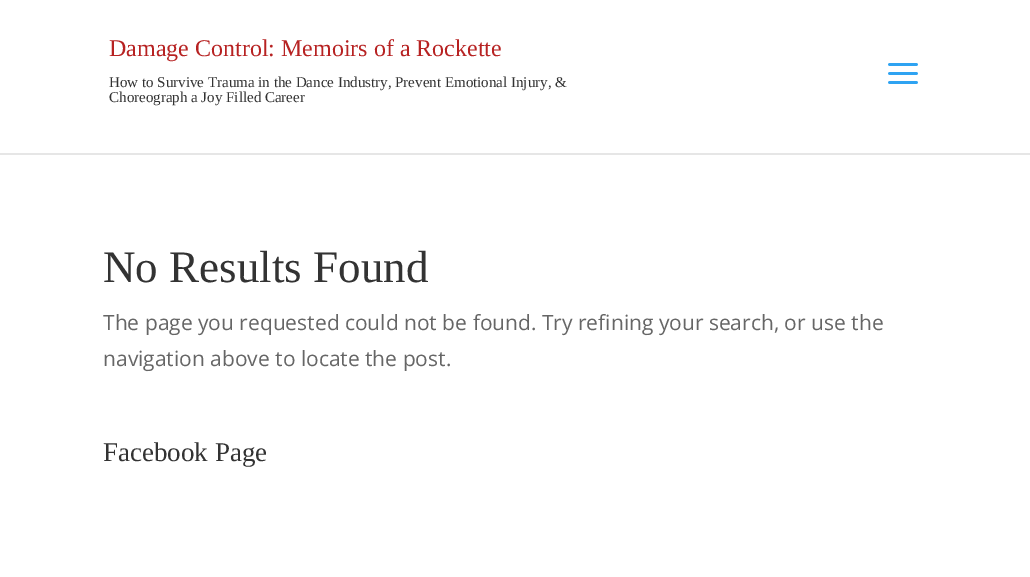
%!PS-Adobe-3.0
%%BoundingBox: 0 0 1030 577
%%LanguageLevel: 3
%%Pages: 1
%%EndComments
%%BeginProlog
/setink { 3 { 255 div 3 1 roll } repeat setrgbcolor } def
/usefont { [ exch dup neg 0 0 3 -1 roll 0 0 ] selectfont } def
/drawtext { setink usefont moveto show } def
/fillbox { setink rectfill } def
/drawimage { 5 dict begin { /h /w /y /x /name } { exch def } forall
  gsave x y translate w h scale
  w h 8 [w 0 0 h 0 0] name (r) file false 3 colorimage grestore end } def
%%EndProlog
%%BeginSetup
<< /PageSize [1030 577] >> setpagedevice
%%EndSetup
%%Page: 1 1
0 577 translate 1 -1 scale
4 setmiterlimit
0 0 1030 577 255 255 255 fillbox
230 230 230 setink
0 153 moveto 0 155 lineto 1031 155 lineto 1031 2 lineto 1030 2 lineto 1030 153 lineto closepath fill
(Damage Control: Memoirs of a Rockette) 109 56 /LiberationSerif-Regular 24 183 34 34 drawtext
(How to Survive Trauma in the Dance Industry, Prevent Emotional Injury, &) 109 87 /LiberationSerif-Regular 15 51 51 51 drawtext
(Choreograph a Joy Filled Career) 109 102 /LiberationSerif-Regular 15 51 51 51 drawtext
(assets/img1.rgb) 888 63 30 21 drawimage
(No Results Found) 103 282 /LiberationSerif-Regular 45 51 51 51 drawtext
(The page you requested could not be found. Try refining your search, or use the) 103 330 /OpenSans-Regular 21 102 102 102 drawtext
(navigation above to locate the post.) 103 366 /OpenSans-Regular 21 102 102 102 drawtext
(Facebook Page) 103 461 /LiberationSerif-Regular 27 51 51 51 drawtext
showpage
%%EOF
